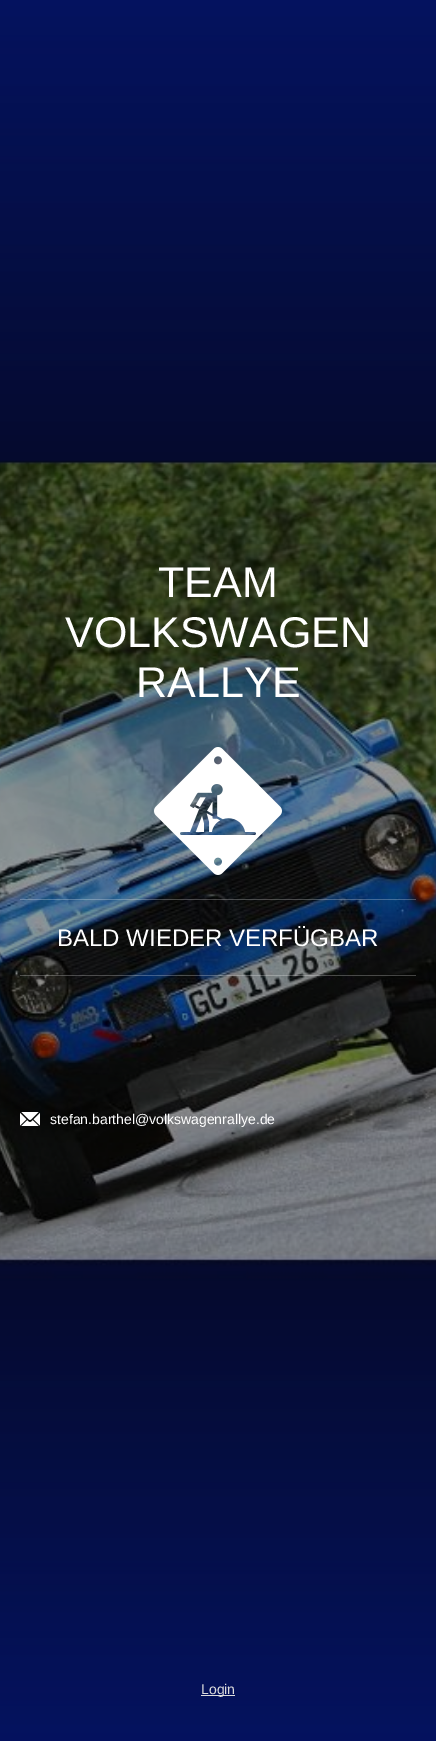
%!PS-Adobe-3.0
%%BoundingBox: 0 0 436 1741
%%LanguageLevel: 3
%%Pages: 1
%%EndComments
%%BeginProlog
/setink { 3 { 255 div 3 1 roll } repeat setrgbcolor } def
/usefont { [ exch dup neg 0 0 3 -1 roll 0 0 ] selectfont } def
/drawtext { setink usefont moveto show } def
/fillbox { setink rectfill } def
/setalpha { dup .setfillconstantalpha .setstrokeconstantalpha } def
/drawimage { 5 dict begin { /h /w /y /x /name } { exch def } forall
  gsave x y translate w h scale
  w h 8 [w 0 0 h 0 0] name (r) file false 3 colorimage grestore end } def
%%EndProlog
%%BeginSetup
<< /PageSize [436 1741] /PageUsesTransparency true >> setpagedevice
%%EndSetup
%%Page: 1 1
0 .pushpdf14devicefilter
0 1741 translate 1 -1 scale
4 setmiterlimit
0 0 436 1741 255 255 255 fillbox
(assets/img1.rgb) 0 0 436 1741 drawimage
(TEAM) 158 597 /LiberationSans-Regular 43 255 255 255 drawtext
(VOLKSWAGEN) 65 647 /LiberationSans-Regular 43 255 255 255 drawtext
(RALLYE) 136 697 /LiberationSans-Regular 43 255 255 255 drawtext
(assets/img2.rgb) 154 747 128 128 drawimage
0.25 setalpha
20 899 396 1 255 255 255 fillbox
20 975 396 1 255 255 255 fillbox
1 setalpha
(BALD WIEDER VERFÜGBAR) 57 946 /LiberationSans-Regular 24 255 255 255 drawtext
(assets/img3.rgb) 20 1112 20 14 drawimage
(stefan.barthel@volkswagenrallye.de) 50 1124 /LiberationSans-Regular 14 255 255 255 drawtext
201 1695 34 1 221 221 221 fillbox
(Login) 201 1694 /LiberationSans-Regular 14 221 221 221 drawtext
.poppdf14devicefilter showpage
%%EOF
